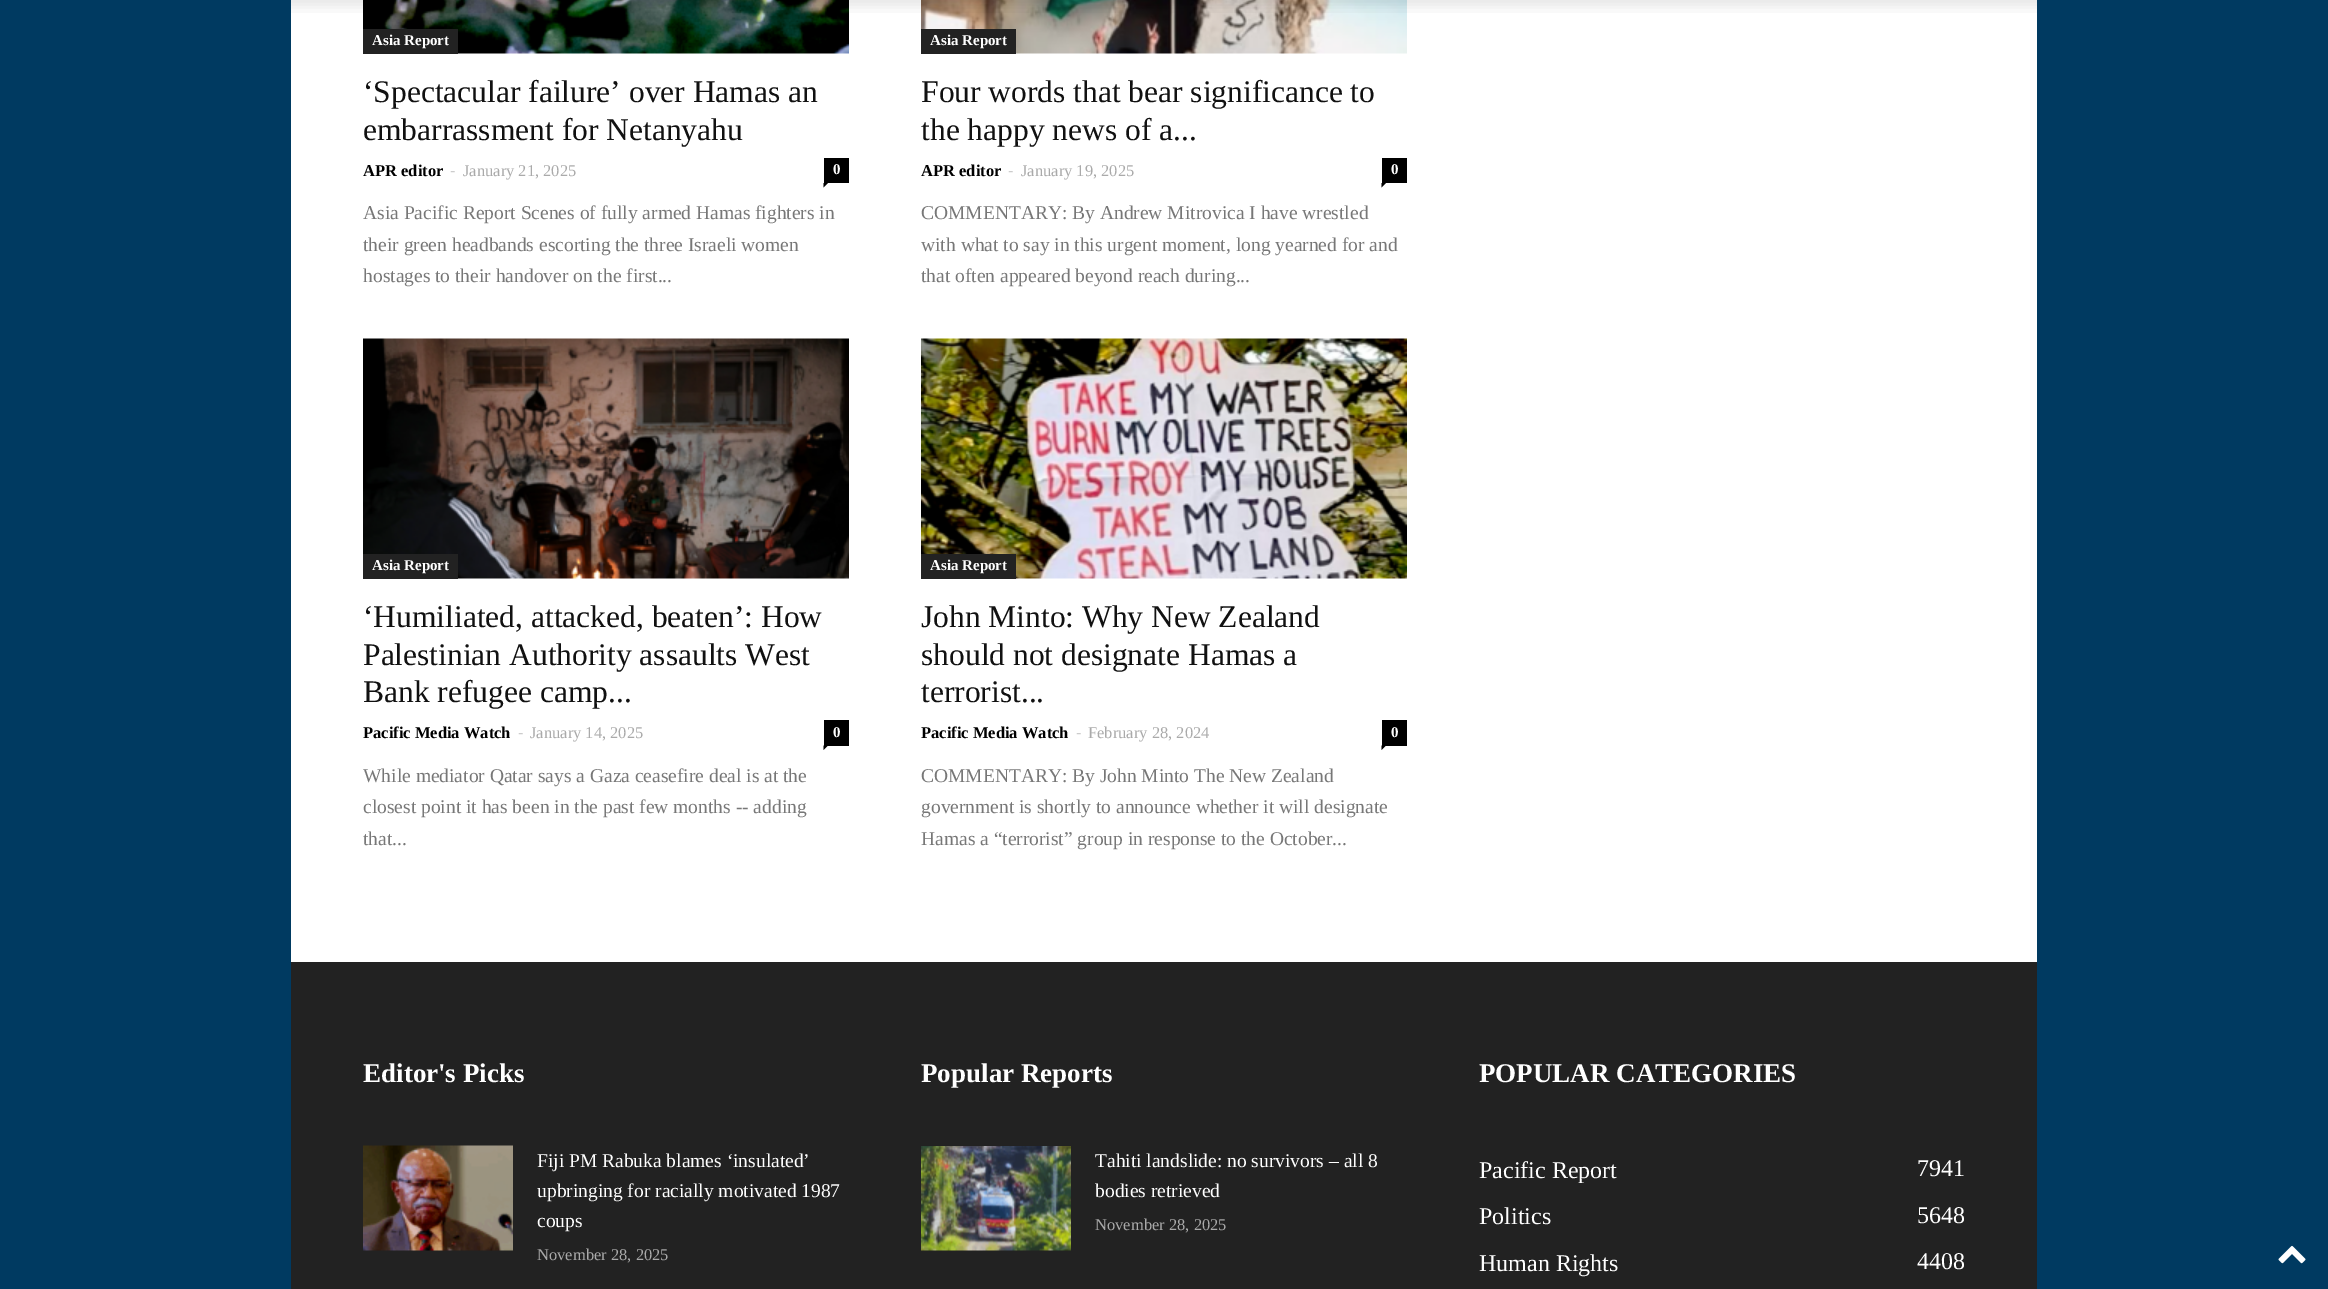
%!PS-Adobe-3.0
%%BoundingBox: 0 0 2328 1289
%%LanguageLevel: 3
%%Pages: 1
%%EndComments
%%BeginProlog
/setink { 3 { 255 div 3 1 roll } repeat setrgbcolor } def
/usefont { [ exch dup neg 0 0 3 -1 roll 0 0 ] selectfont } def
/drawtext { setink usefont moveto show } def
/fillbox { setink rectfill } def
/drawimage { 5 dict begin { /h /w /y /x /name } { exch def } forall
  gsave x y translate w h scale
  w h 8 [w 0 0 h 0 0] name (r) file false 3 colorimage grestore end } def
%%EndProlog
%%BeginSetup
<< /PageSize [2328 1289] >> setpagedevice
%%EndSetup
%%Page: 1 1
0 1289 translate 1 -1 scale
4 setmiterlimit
0 0 2328 1289 0 58 97 fillbox
291 0 1746 962 255 255 255 fillbox
(assets/img2.rgb) 363 0 486 54 drawimage
(assets/img3.rgb) 921 0 486 54 drawimage
(assets/img1.rgb) 291 0 1746 13 drawimage
363 29 95 25 34 34 34 fillbox
(Asia Report) 372 45 /LiberationSerif-Bold 15 255 255 255 drawtext
(‘Spectacular failure’ over Hamas an) 363 102 /LiberationSerif-Regular 31.5 17 17 17 drawtext
(embarrassment for Netanyahu) 363 140 /LiberationSerif-Regular 31.5 17 17 17 drawtext
(APR editor) 363 176 /LiberationSerif-Bold 16.5 0 0 0 drawtext
(-) 450 176 /OpenSans-Regular 16.5 204 204 204 drawtext
(January 21, 2025) 463 176 /LiberationSerif-Regular 16.5 170 170 170 drawtext
824 158 25 25 0 0 0 fillbox
(0) 833 174 /LiberationSerif-Bold 15 255 255 255 drawtext
0 0 0 setink
823.5 183 moveto 828 183 lineto 823.5 187.5 lineto closepath fill
(Asia Pacific Report Scenes of fully armed Hamas fighters in) 363 219 /LiberationSerif-Regular 19.5 119 119 119 drawtext
(their green headbands escorting the three Israeli women) 363 251 /LiberationSerif-Regular 19.5 119 119 119 drawtext
(hostages to their handover on the first...) 363 282 /LiberationSerif-Regular 19.5 119 119 119 drawtext
921 29 95 25 34 34 34 fillbox
(Asia Report) 930 45 /LiberationSerif-Bold 15 255 255 255 drawtext
(Four words that bear significance to) 921 102 /LiberationSerif-Regular 31.5 17 17 17 drawtext
(the happy news of a...) 921 140 /LiberationSerif-Regular 31.5 17 17 17 drawtext
(APR editor) 921 176 /LiberationSerif-Bold 16.5 0 0 0 drawtext
(-) 1008 176 /OpenSans-Regular 16.5 204 204 204 drawtext
(January 19, 2025) 1021 176 /LiberationSerif-Regular 16.5 170 170 170 drawtext
1382 158 25 25 0 0 0 fillbox
(0) 1391 174 /LiberationSerif-Bold 15 255 255 255 drawtext
0 0 0 setink
1381.5 183 moveto 1386 183 lineto 1381.5 187.5 lineto closepath fill
(COMMENTARY: By Andrew Mitrovica I have wrestled) 921 219 /LiberationSerif-Regular 19.5 119 119 119 drawtext
(with what to say in this urgent moment, long yearned for and) 921 251 /LiberationSerif-Regular 19.5 119 119 119 drawtext
(that often appeared beyond reach during...) 921 282 /LiberationSerif-Regular 19.5 119 119 119 drawtext
(assets/img4.rgb) 363 338 486 241 drawimage
363 554 95 25 34 34 34 fillbox
(Asia Report) 372 570 /LiberationSerif-Bold 15 255 255 255 drawtext
(‘Humiliated, attacked, beaten’: How) 363 627 /LiberationSerif-Regular 31.5 17 17 17 drawtext
(Palestinian Authority assaults West) 363 665 /LiberationSerif-Regular 31.5 17 17 17 drawtext
(Bank refugee camp...) 363 702 /LiberationSerif-Regular 31.5 17 17 17 drawtext
(Pacific Media Watch) 363 738 /LiberationSerif-Bold 16.5 0 0 0 drawtext
(-) 518 738 /OpenSans-Regular 16.5 204 204 204 drawtext
(January 14, 2025) 530 738 /LiberationSerif-Regular 16.5 170 170 170 drawtext
824 720 25 26 0 0 0 fillbox
(0) 833 737 /LiberationSerif-Bold 15 255 255 255 drawtext
0 0 0 setink
823.5 745.5 moveto 828 745.5 lineto 823.5 750 lineto closepath fill
(While mediator Qatar says a Gaza ceasefire deal is at the) 363 782 /LiberationSerif-Regular 19.5 119 119 119 drawtext
(closest point it has been in the past few months -- adding) 363 813 /LiberationSerif-Regular 19.5 119 119 119 drawtext
(that...) 363 845 /LiberationSerif-Regular 19.5 119 119 119 drawtext
(assets/img5.rgb) 921 338 486 241 drawimage
921 554 95 25 34 34 34 fillbox
(Asia Report) 930 570 /LiberationSerif-Bold 15 255 255 255 drawtext
(John Minto: Why New Zealand) 921 627 /LiberationSerif-Regular 31.5 17 17 17 drawtext
(should not designate Hamas a) 921 665 /LiberationSerif-Regular 31.5 17 17 17 drawtext
(terrorist...) 921 702 /LiberationSerif-Regular 31.5 17 17 17 drawtext
(Pacific Media Watch) 921 738 /LiberationSerif-Bold 16.5 0 0 0 drawtext
(-) 1076 738 /OpenSans-Regular 16.5 204 204 204 drawtext
(February 28, 2024) 1088 738 /LiberationSerif-Regular 16.5 170 170 170 drawtext
1382 720 25 26 0 0 0 fillbox
(0) 1391 737 /LiberationSerif-Bold 15 255 255 255 drawtext
0 0 0 setink
1381.5 745.5 moveto 1386 745.5 lineto 1381.5 750 lineto closepath fill
(COMMENTARY: By John Minto The New Zealand) 921 782 /LiberationSerif-Regular 19.5 119 119 119 drawtext
(government is shortly to announce whether it will designate) 921 813 /LiberationSerif-Regular 19.5 119 119 119 drawtext
(Hamas a “terrorist” group in response to the October...) 921 845 /LiberationSerif-Regular 19.5 119 119 119 drawtext
291 962 1746 327 34 34 34 fillbox
(Editor's Picks) 363 1082 /LiberationSerif-Bold 27 255 255 255 drawtext
(assets/img6.rgb) 363 1145 150 106 drawimage
(Fiji PM Rabuka blames ‘insulated’) 537 1167 /LiberationSerif-Regular 19.5 255 255 255 drawtext
(upbringing for racially motivated 1987) 537 1197 /LiberationSerif-Regular 19.5 255 255 255 drawtext
(coups) 537 1227 /LiberationSerif-Regular 19.5 255 255 255 drawtext
(November 28, 2025) 537 1260 /LiberationSerif-Regular 16.5 170 170 170 drawtext
(Popular Reports) 921 1082 /LiberationSerif-Bold 27 255 255 255 drawtext
(assets/img7.rgb) 921 1146 150 105 drawimage
(Tahiti landslide: no survivors – all 8) 1095 1167 /LiberationSerif-Regular 19.5 255 255 255 drawtext
(bodies retrieved) 1095 1197 /LiberationSerif-Regular 19.5 255 255 255 drawtext
(November 28, 2025) 1095 1230 /LiberationSerif-Regular 16.5 170 170 170 drawtext
(POPULAR CATEGORIES) 1479 1082 /LiberationSerif-Bold 27 255 255 255 drawtext
(Pacific Report) 1479 1178 /LiberationSerif-Regular 24 255 255 255 drawtext
(7941) 1917 1176 /LiberationSerif-Regular 24 255 255 255 drawtext
(Politics) 1479 1224 /LiberationSerif-Regular 24 255 255 255 drawtext
(5648) 1917 1223 /LiberationSerif-Regular 24 255 255 255 drawtext
(Human Rights) 1479 1271 /LiberationSerif-Regular 24 255 255 255 drawtext
(4408) 1917 1269 /LiberationSerif-Regular 24 255 255 255 drawtext
(assets/img8.rgb) 2278 1245 28 19 drawimage
showpage
%%EOF
